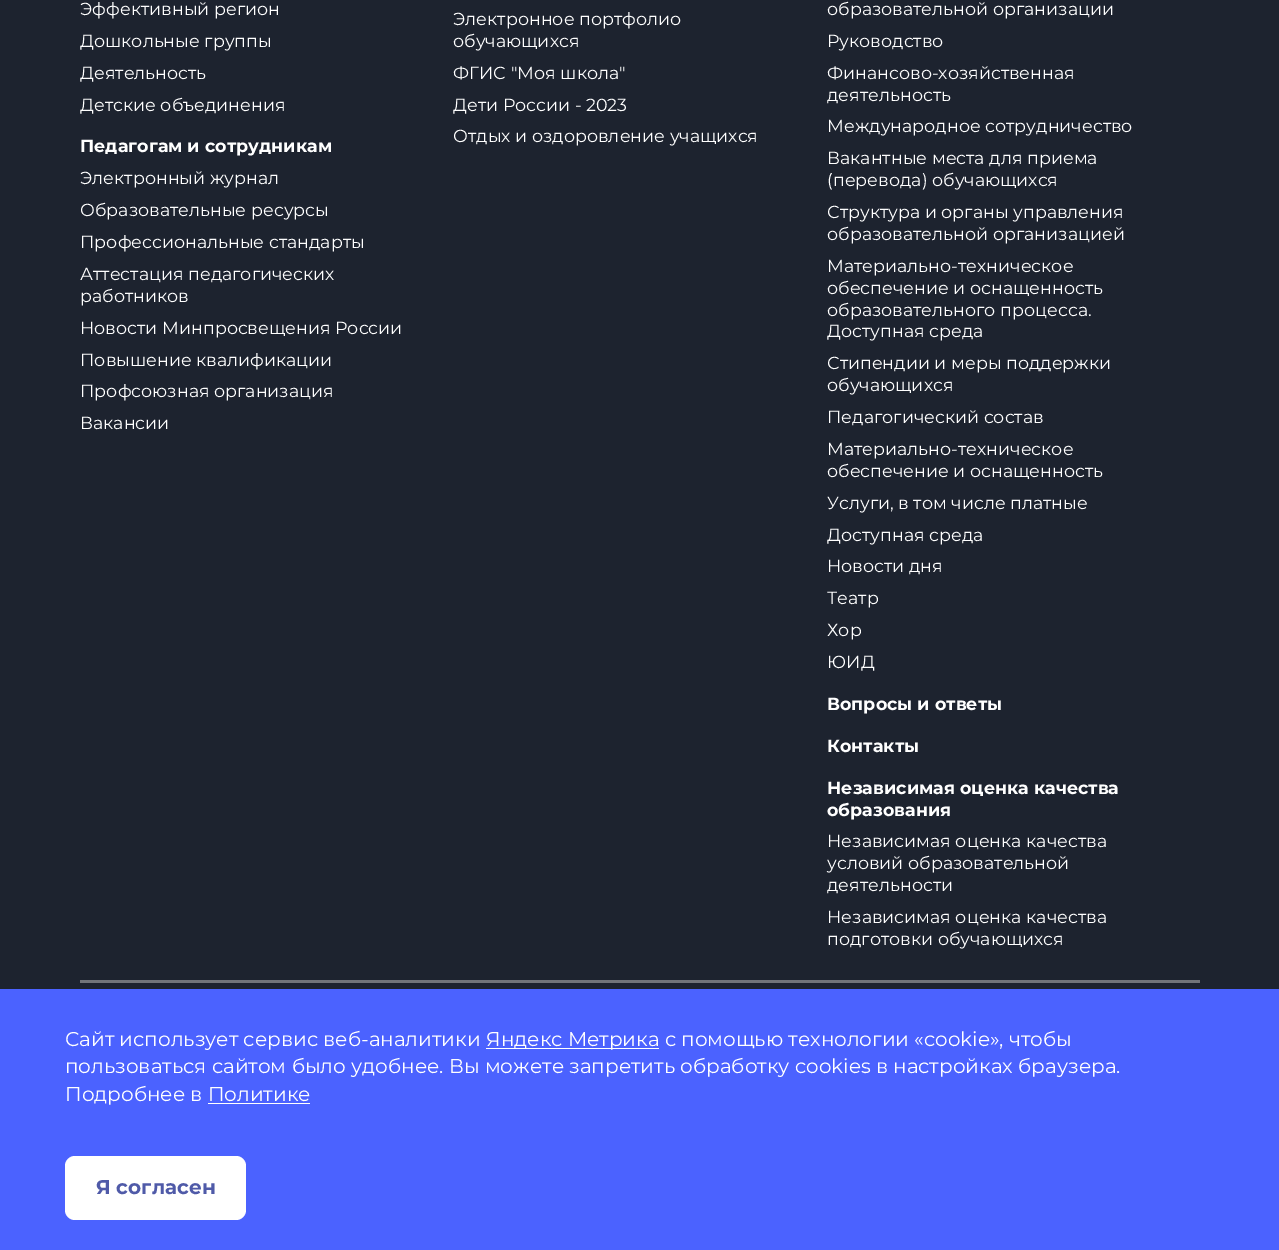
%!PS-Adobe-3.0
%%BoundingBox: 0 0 1279 1250
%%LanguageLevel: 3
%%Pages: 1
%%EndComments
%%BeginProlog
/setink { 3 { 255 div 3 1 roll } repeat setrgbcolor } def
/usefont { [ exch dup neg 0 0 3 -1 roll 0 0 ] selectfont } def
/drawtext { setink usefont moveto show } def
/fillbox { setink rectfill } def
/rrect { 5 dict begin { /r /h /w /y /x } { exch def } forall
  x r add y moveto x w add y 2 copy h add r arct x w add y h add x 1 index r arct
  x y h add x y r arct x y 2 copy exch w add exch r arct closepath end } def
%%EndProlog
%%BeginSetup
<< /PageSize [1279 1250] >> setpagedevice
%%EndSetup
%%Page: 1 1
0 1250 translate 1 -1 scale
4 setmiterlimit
0 0 1279 1250 29 35 47 fillbox
(Эффективный регион) 80 15 /Montserrat-Regular 17.5 255 255 255 drawtext
(Дошкольные группы) 80 47 /Montserrat-Regular 17.5 255 255 255 drawtext
(Деятельность) 80 79 /Montserrat-Regular 17.5 255 255 255 drawtext
(Детские объединения) 80 111 /Montserrat-Regular 17.5 255 255 255 drawtext
(Педагогам и сотрудникам) 80 152 /Montserrat-Bold 17.5 255 255 255 drawtext
(Электронный журнал) 80 184 /Montserrat-Regular 17.5 255 255 255 drawtext
(Образовательные ресурсы) 80 216 /Montserrat-Regular 17.5 255 255 255 drawtext
(Профессиональные стандарты) 80 248 /Montserrat-Regular 17.5 255 255 255 drawtext
(Аттестация педагогических) 80 280 /Montserrat-Regular 17.5 255 255 255 drawtext
(работников) 80 302 /Montserrat-Regular 17.5 255 255 255 drawtext
(Новости Минпросвещения России) 80 334 /Montserrat-Regular 17.5 255 255 255 drawtext
(Повышение квалификации) 80 366 /Montserrat-Regular 17.5 255 255 255 drawtext
(Профсоюзная организация) 80 397 /Montserrat-Regular 17.5 255 255 255 drawtext
(Вакансии) 80 429 /Montserrat-Regular 17.5 255 255 255 drawtext
(Электронное портфолио) 453 25 /Montserrat-Regular 17.5 255 255 255 drawtext
(обучающихся) 453 47 /Montserrat-Regular 17.5 255 255 255 drawtext
(ФГИС "Моя школа") 453 79 /Montserrat-Regular 17.5 255 255 255 drawtext
(Дети России - 2023) 453 111 /Montserrat-Regular 17.5 255 255 255 drawtext
(Отдых и оздоровление учащихся) 453 142 /Montserrat-Regular 17.5 255 255 255 drawtext
(образовательной организации) 827 15 /Montserrat-Regular 17.5 255 255 255 drawtext
(Руководство) 827 47 /Montserrat-Regular 17.5 255 255 255 drawtext
(Финансово-хозяйственная) 827 79 /Montserrat-Regular 17.5 255 255 255 drawtext
(деятельность) 827 101 /Montserrat-Regular 17.5 255 255 255 drawtext
(Международное сотрудничество) 827 132 /Montserrat-Regular 17.5 255 255 255 drawtext
(Вакантные места для приема) 827 164 /Montserrat-Regular 17.5 255 255 255 drawtext
(\(перевода\) обучающихся) 827 186 /Montserrat-Regular 17.5 255 255 255 drawtext
(Структура и органы управления) 827 218 /Montserrat-Regular 17.5 255 255 255 drawtext
(образовательной организацией) 827 240 /Montserrat-Regular 17.5 255 255 255 drawtext
(Материально-техническое) 827 272 /Montserrat-Regular 17.5 255 255 255 drawtext
(обеспечение и оснащенность) 827 294 /Montserrat-Regular 17.5 255 255 255 drawtext
(образовательного процесса.) 827 316 /Montserrat-Regular 17.5 255 255 255 drawtext
(Доступная среда) 827 337 /Montserrat-Regular 17.5 255 255 255 drawtext
(Стипендии и меры поддержки) 827 369 /Montserrat-Regular 17.5 255 255 255 drawtext
(обучающихся) 827 391 /Montserrat-Regular 17.5 255 255 255 drawtext
(Педагогический состав) 827 423 /Montserrat-Regular 17.5 255 255 255 drawtext
(Материально-техническое) 827 455 /Montserrat-Regular 17.5 255 255 255 drawtext
(обеспечение и оснащенность) 827 477 /Montserrat-Regular 17.5 255 255 255 drawtext
(Услуги, в том числе платные) 827 509 /Montserrat-Regular 17.5 255 255 255 drawtext
(Доступная среда) 827 541 /Montserrat-Regular 17.5 255 255 255 drawtext
(Новости дня) 827 572 /Montserrat-Regular 17.5 255 255 255 drawtext
(Театр) 827 604 /Montserrat-Regular 17.5 255 255 255 drawtext
(Хор) 827 636 /Montserrat-Regular 17.5 255 255 255 drawtext
(ЮИД) 827 668 /Montserrat-Regular 17.5 255 255 255 drawtext
(Вопросы и ответы) 827 710 /Montserrat-Bold 17.5 255 255 255 drawtext
(Контакты) 827 752 /Montserrat-Bold 17.5 255 255 255 drawtext
(Независимая оценка качества) 827 794 /Montserrat-Bold 17.5 255 255 255 drawtext
(образования) 827 816 /Montserrat-Bold 17.5 255 255 255 drawtext
(Независимая оценка качества) 827 847 /Montserrat-Regular 17.5 255 255 255 drawtext
(условий образовательной) 827 869 /Montserrat-Regular 17.5 255 255 255 drawtext
(деятельности) 827 891 /Montserrat-Regular 17.5 255 255 255 drawtext
(Независимая оценка качества) 827 923 /Montserrat-Regular 17.5 255 255 255 drawtext
(подготовки обучающихся) 827 945 /Montserrat-Regular 17.5 255 255 255 drawtext
80 980 1120 3 113 116 122 fillbox
0 989 1279 261 75 98 255 fillbox
(Сайт использует сервис веб-аналитики) 65 1046 /Montserrat-Regular 20 255 255 255 drawtext
486 1048 173 1 255 255 255 fillbox
(Яндекс Метрика с помощью технологии «cookie», чтобы) 486 1046 /Montserrat-Regular 20 255 255 255 drawtext
(пользоваться сайтом было удобнее. Вы можете запретить обработку cookies в настройках браузера.) 65 1073 /Montserrat-Regular 20 255 255 255 drawtext
(Подробнее в Политике) 65 1101 /Montserrat-Regular 20 255 255 255 drawtext
208 1103 102 1 255 255 255 fillbox
65 1156 181 64 10 rrect fill
(Я согласен) 96 1194 /Montserrat-Bold 20 79 90 168 drawtext
showpage
%%EOF
